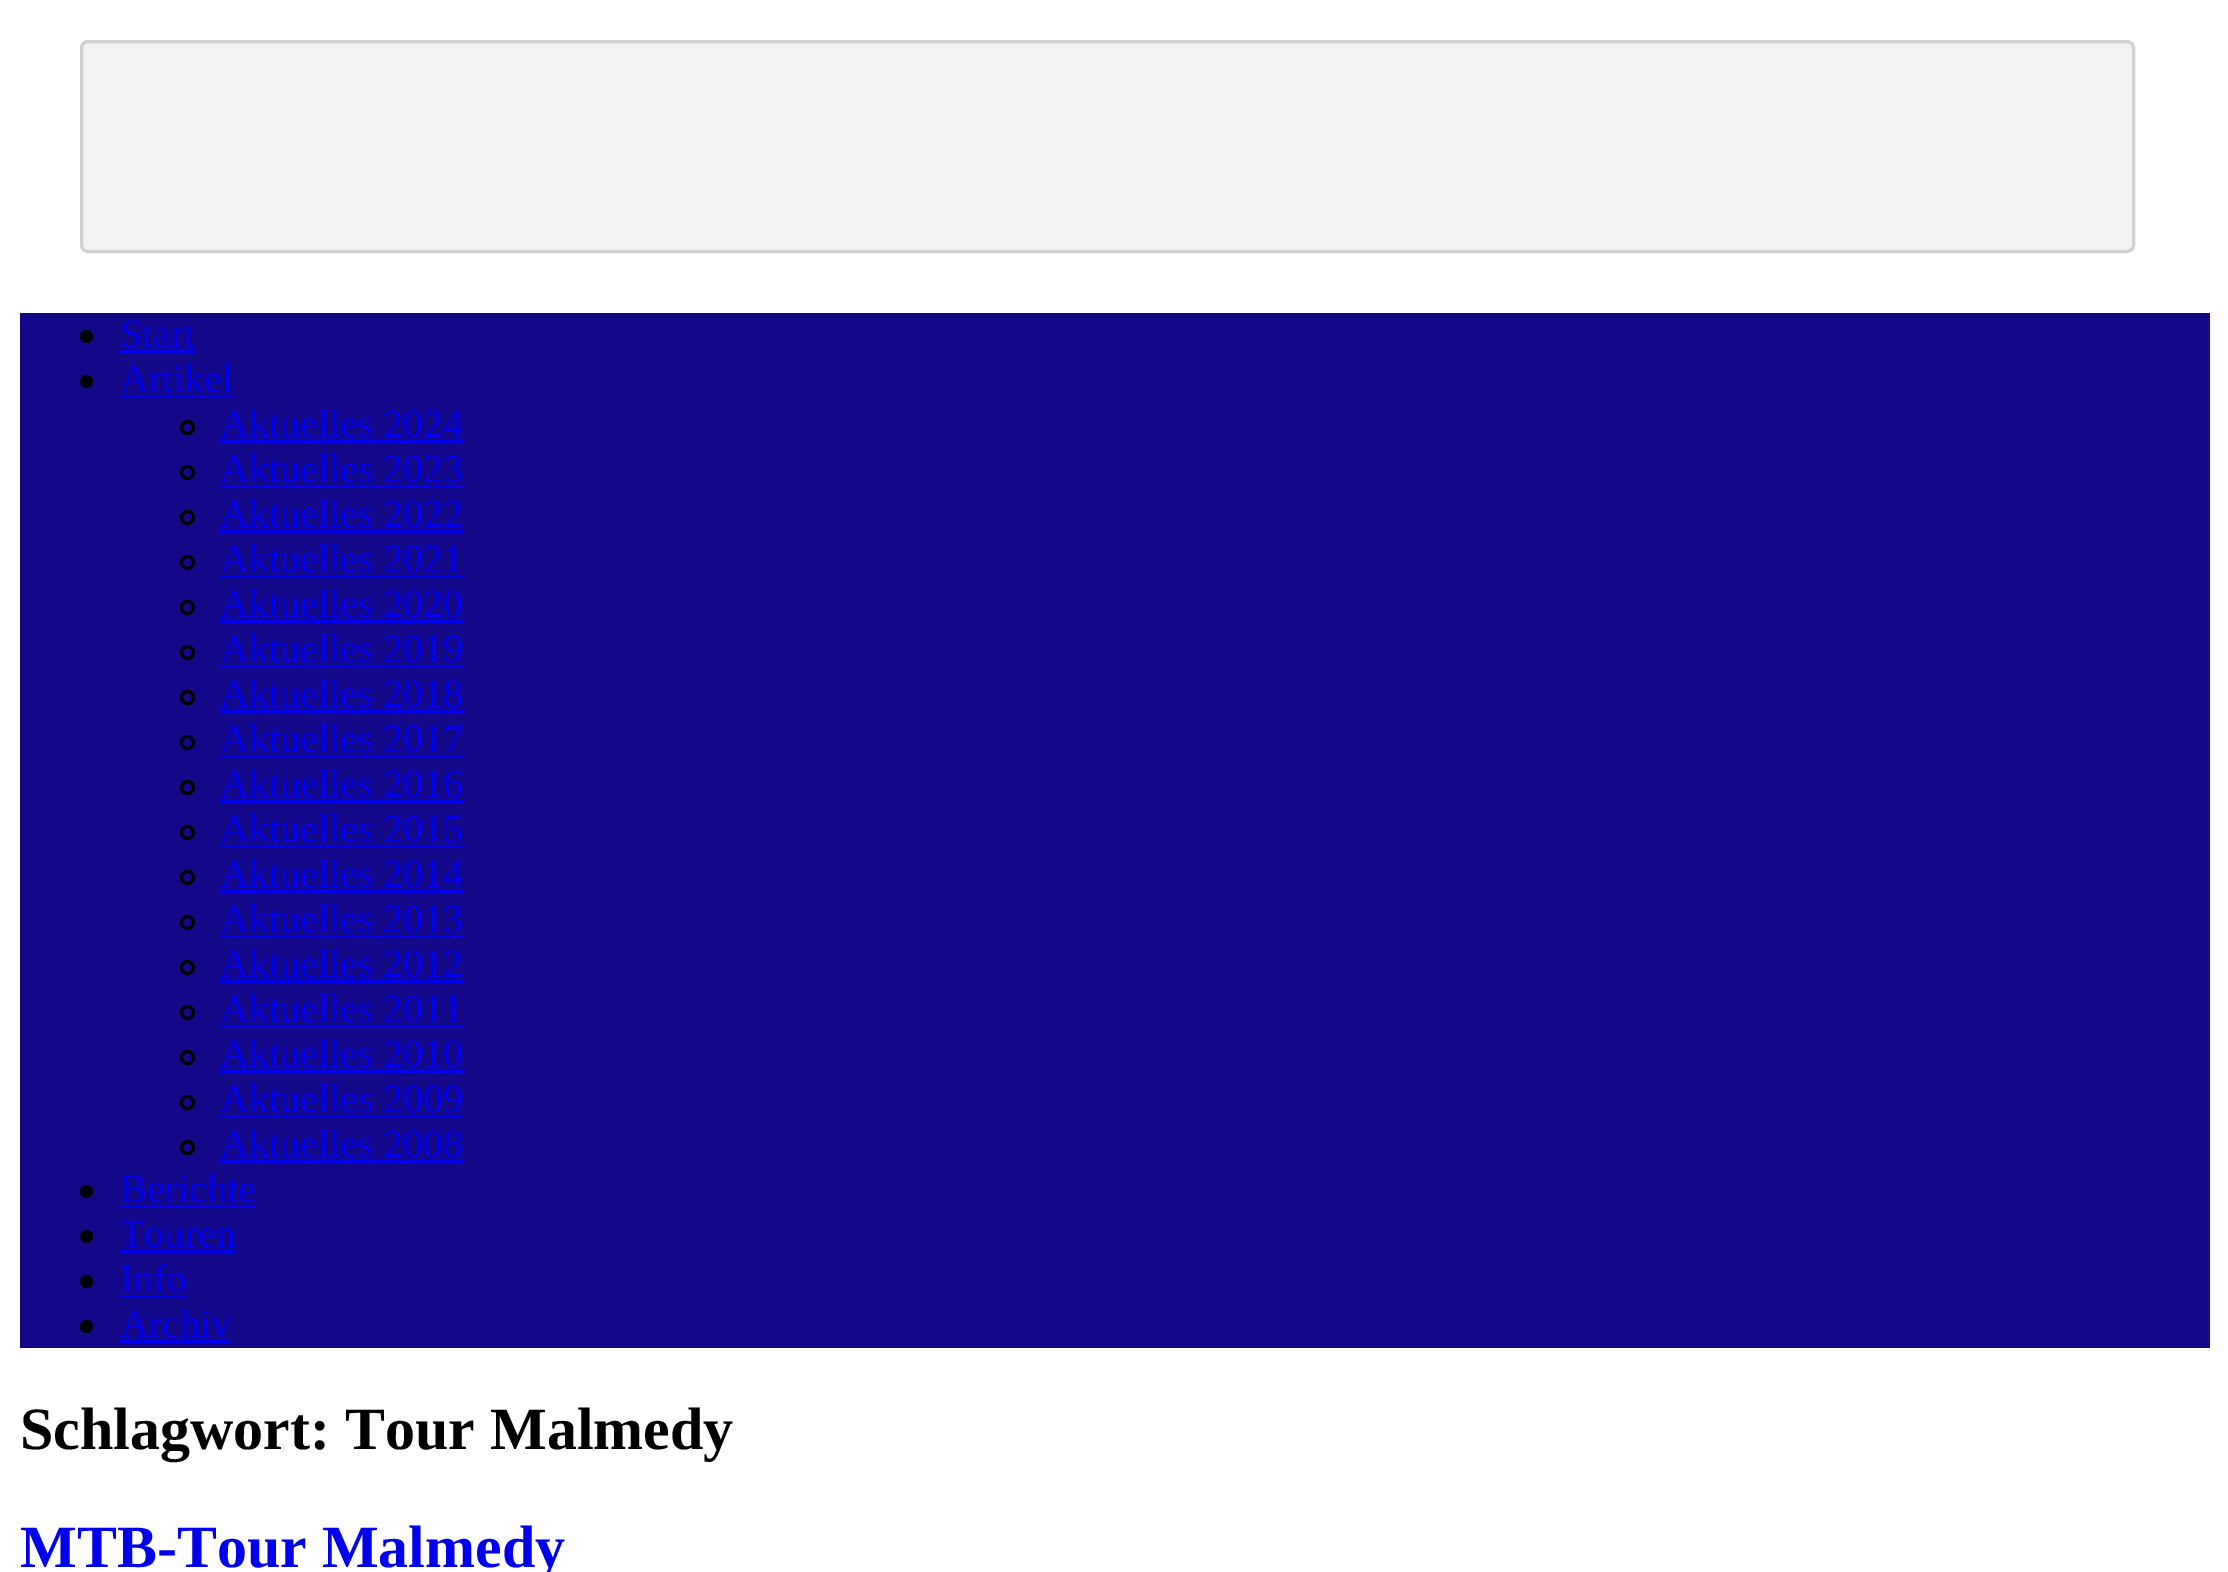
%!PS-Adobe-3.0
%%BoundingBox: 0 0 2228 1572
%%LanguageLevel: 3
%%Pages: 1
%%EndComments
%%BeginProlog
/setink { 3 { 255 div 3 1 roll } repeat setrgbcolor } def
/usefont { [ exch dup neg 0 0 3 -1 roll 0 0 ] selectfont } def
/drawtext { setink usefont moveto show } def
/fillbox { setink rectfill } def
/disc { newpath 0 360 arc closepath } def
/rrect { 5 dict begin { /r /h /w /y /x } { exch def } forall
  x r add y moveto x w add y 2 copy h add r arct x w add y h add x 1 index r arct
  x y h add x y r arct x y 2 copy exch w add exch r arct closepath end } def
%%EndProlog
%%BeginSetup
<< /PageSize [2228 1572] >> setpagedevice
%%EndSetup
%%Page: 1 1
0 1572 translate 1 -1 scale
4 setmiterlimit
0 0 2228 1572 255 255 255 fillbox
242 242 242 setink
81.5 41.5 2052 210 6.5 rrect gsave fill grestore
209 209 209 setink
3 setlinewidth
stroke
20 313 2190 1035 18 8 136 fillbox
0 0 0 setink
86.5 336.5 6.5 disc fill
(Start) 120 347 /LiberationSerif-Regular 40 0 0 238 drawtext
120 350 75 3 0 0 238 fillbox
0 0 0 setink
86.5 381.5 6.5 disc fill
(Artikel) 120 392 /LiberationSerif-Regular 40 0 0 238 drawtext
120 395 113 3 0 0 238 fillbox
0 0 0 setink
187.5 427.5 6 disc stroke
(Aktuelles 2024) 220 437 /LiberationSerif-Regular 40 0 0 238 drawtext
220 440 243 3 0 0 238 fillbox
0 0 0 setink
187.5 472.5 6 disc stroke
(Aktuelles 2023) 220 482 /LiberationSerif-Regular 40 0 0 238 drawtext
220 485 243 3 0 0 238 fillbox
0 0 0 setink
187.5 517.5 6 disc stroke
(Aktuelles 2022) 220 527 /LiberationSerif-Regular 40 0 0 238 drawtext
220 530 243 3 0 0 238 fillbox
0 0 0 setink
187.5 562.5 6 disc stroke
(Aktuelles 2021) 220 572 /LiberationSerif-Regular 40 0 0 238 drawtext
220 575 243 3 0 0 238 fillbox
0 0 0 setink
187.5 607.5 6 disc stroke
(Aktuelles 2020) 220 617 /LiberationSerif-Regular 40 0 0 238 drawtext
220 620 243 3 0 0 238 fillbox
0 0 0 setink
187.5 652.5 6 disc stroke
(Aktuelles 2019) 220 662 /LiberationSerif-Regular 40 0 0 238 drawtext
220 665 243 3 0 0 238 fillbox
0 0 0 setink
187.5 697.5 6 disc stroke
(Aktuelles 2018) 220 707 /LiberationSerif-Regular 40 0 0 238 drawtext
220 710 243 3 0 0 238 fillbox
0 0 0 setink
187.5 742.5 6 disc stroke
(Aktuelles 2017) 220 752 /LiberationSerif-Regular 40 0 0 238 drawtext
220 755 243 3 0 0 238 fillbox
0 0 0 setink
187.5 787.5 6 disc stroke
(Aktuelles 2016) 220 797 /LiberationSerif-Regular 40 0 0 238 drawtext
220 800 243 3 0 0 238 fillbox
0 0 0 setink
187.5 832.5 6 disc stroke
(Aktuelles 2015) 220 842 /LiberationSerif-Regular 40 0 0 238 drawtext
220 845 243 3 0 0 238 fillbox
0 0 0 setink
187.5 877.5 6 disc stroke
(Aktuelles 2014) 220 887 /LiberationSerif-Regular 40 0 0 238 drawtext
220 890 243 3 0 0 238 fillbox
0 0 0 setink
187.5 922.5 6 disc stroke
(Aktuelles 2013) 220 932 /LiberationSerif-Regular 40 0 0 238 drawtext
220 935 243 3 0 0 238 fillbox
0 0 0 setink
187.5 967.5 6 disc stroke
(Aktuelles 2012) 220 977 /LiberationSerif-Regular 40 0 0 238 drawtext
220 980 243 3 0 0 238 fillbox
0 0 0 setink
187.5 1012.5 6 disc stroke
(Aktuelles 2011) 220 1022 /LiberationSerif-Regular 40 0 0 238 drawtext
220 1025 243 3 0 0 238 fillbox
0 0 0 setink
187.5 1057.5 6 disc stroke
(Aktuelles 2010) 220 1067 /LiberationSerif-Regular 40 0 0 238 drawtext
220 1070 243 3 0 0 238 fillbox
0 0 0 setink
187.5 1102.5 6 disc stroke
(Aktuelles 2009) 220 1112 /LiberationSerif-Regular 40 0 0 238 drawtext
220 1115 243 3 0 0 238 fillbox
0 0 0 setink
187.5 1147.5 6 disc stroke
(Aktuelles 2008) 220 1157 /LiberationSerif-Regular 40 0 0 238 drawtext
220 1160 243 3 0 0 238 fillbox
0 0 0 setink
86.5 1191.5 6.5 disc fill
(Berichte) 120 1202 /LiberationSerif-Regular 40 0 0 238 drawtext
120 1205 135 3 0 0 238 fillbox
0 0 0 setink
86.5 1236.5 6.5 disc fill
(Touren) 120 1247 /LiberationSerif-Regular 40 0 0 238 drawtext
120 1250 115 3 0 0 238 fillbox
0 0 0 setink
86.5 1281.5 6.5 disc fill
(Info) 120 1292 /LiberationSerif-Regular 40 0 0 238 drawtext
120 1295 68 3 0 0 238 fillbox
0 0 0 setink
86.5 1326.5 6.5 disc fill
(Archiv) 120 1337 /LiberationSerif-Regular 40 0 0 238 drawtext
120 1340 110 3 0 0 238 fillbox
(Schlagwort: Tour Malmedy) 20 1449 /LiberationSerif-Bold 60 0 0 0 drawtext
(MTB-Tour Malmedy) 20 1567 /LiberationSerif-Bold 60 0 0 238 drawtext
showpage
%%EOF
